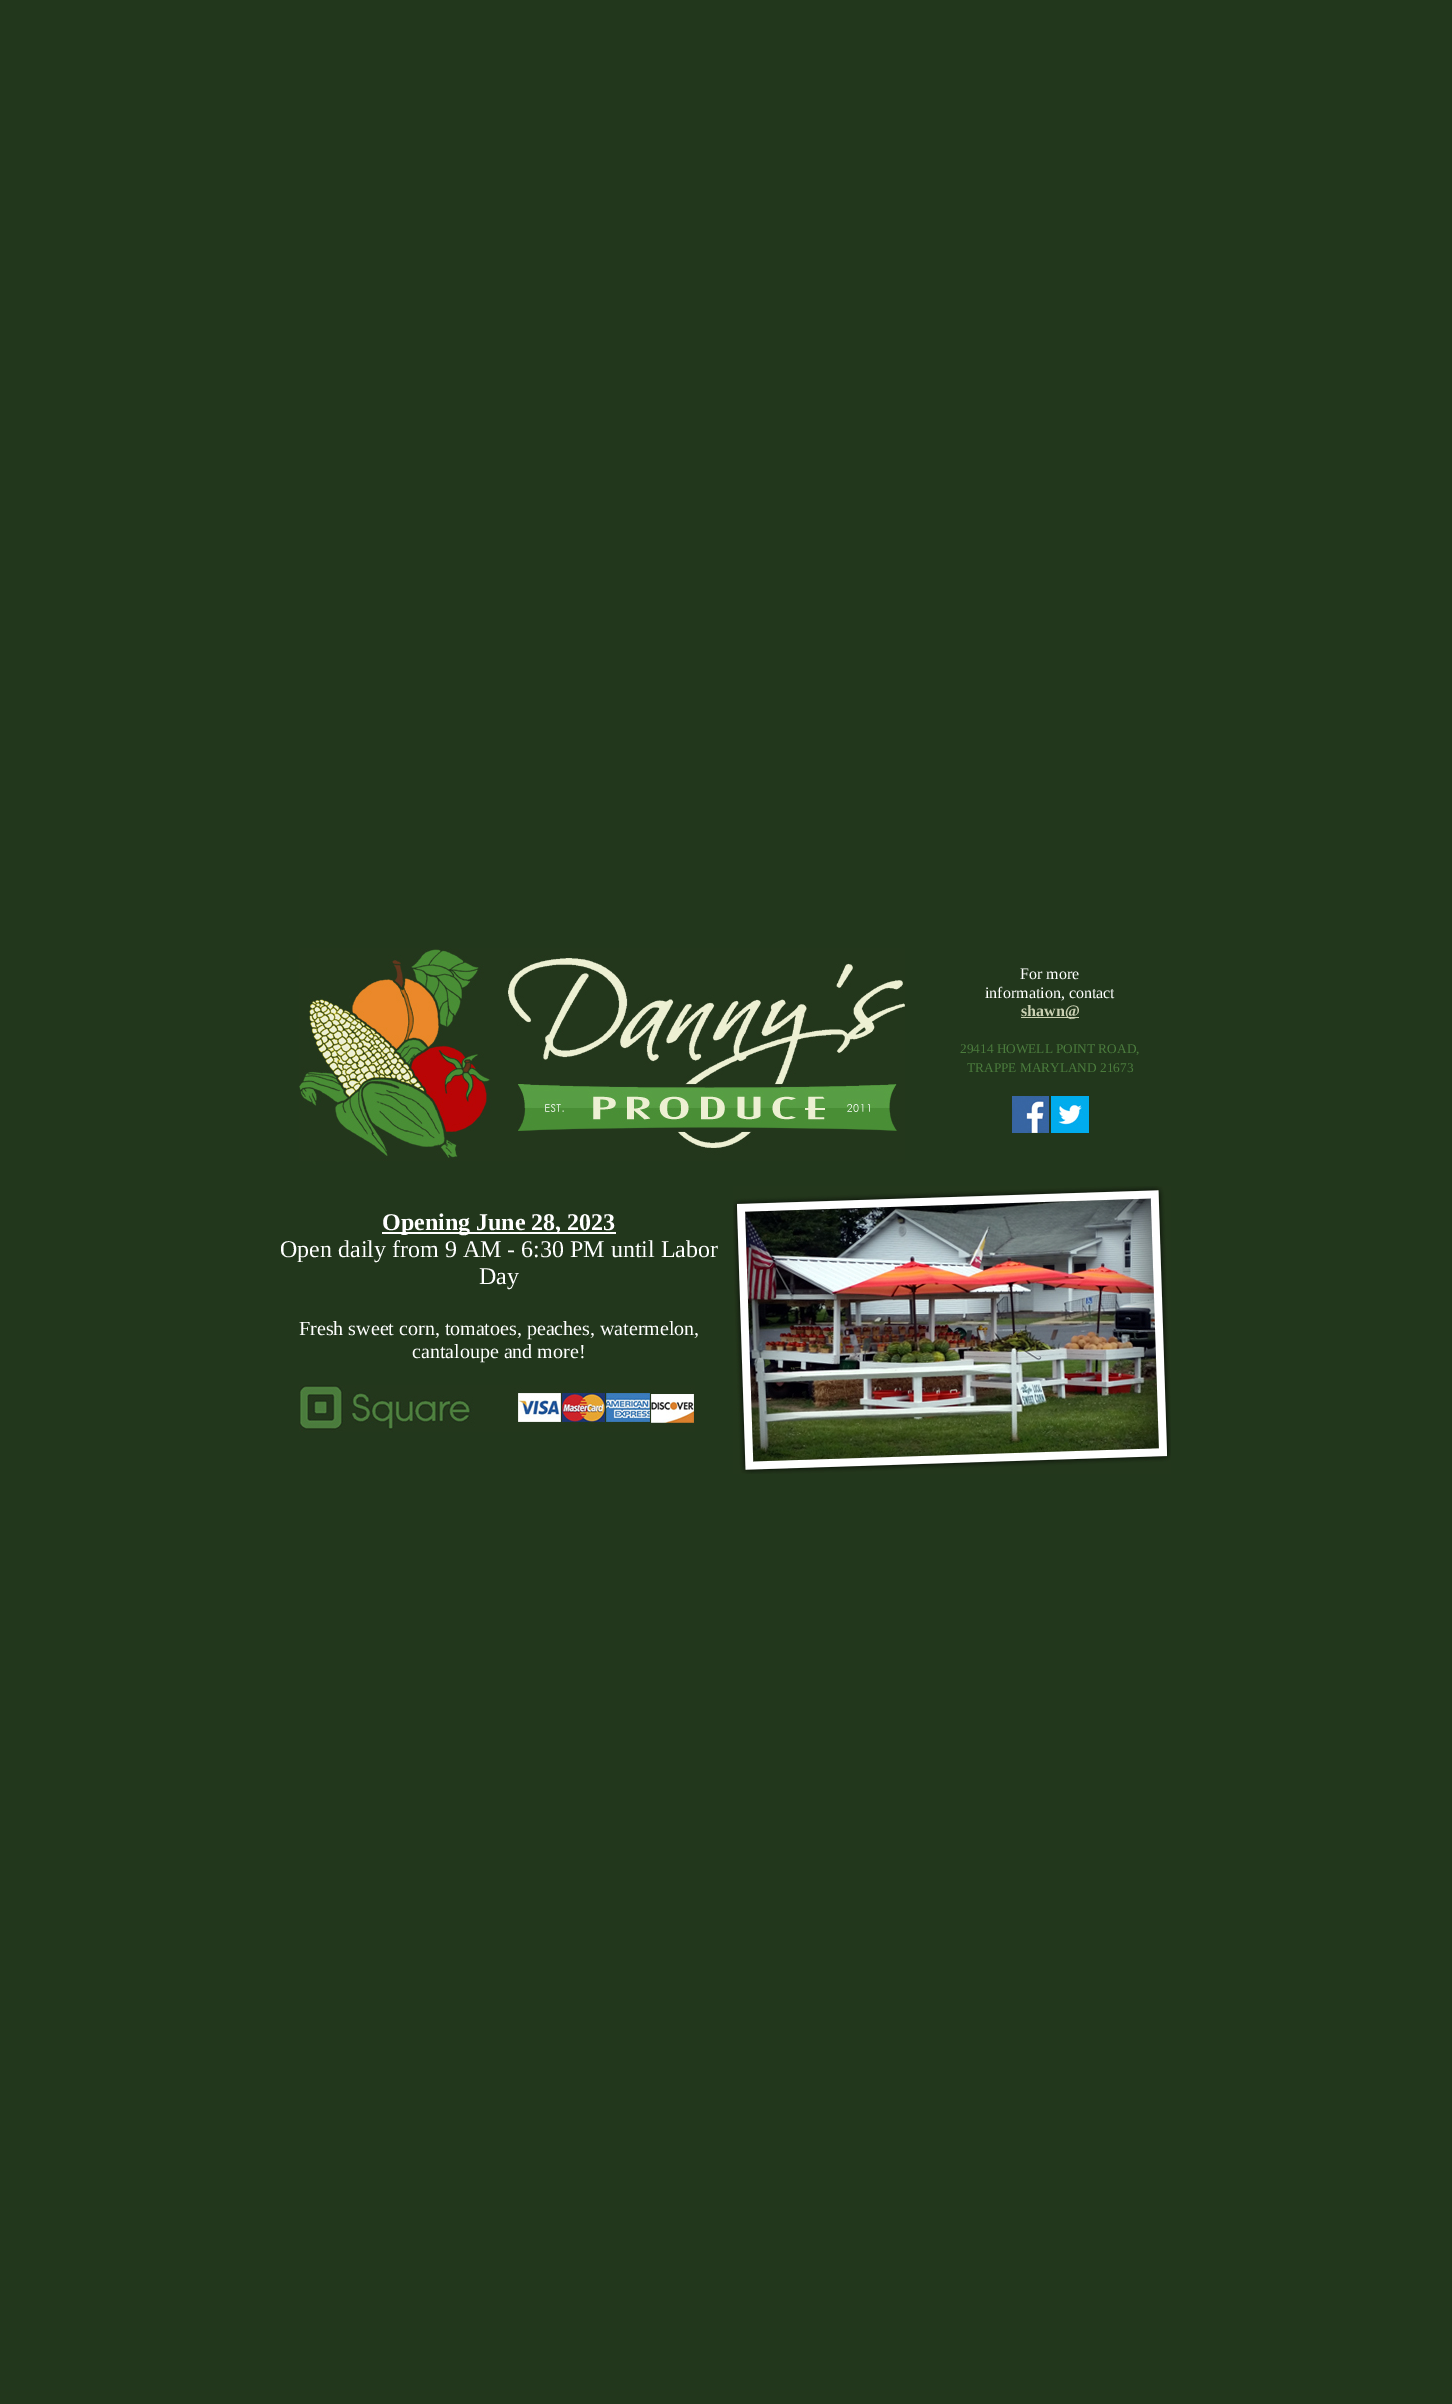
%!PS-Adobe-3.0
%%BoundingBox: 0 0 1452 2404
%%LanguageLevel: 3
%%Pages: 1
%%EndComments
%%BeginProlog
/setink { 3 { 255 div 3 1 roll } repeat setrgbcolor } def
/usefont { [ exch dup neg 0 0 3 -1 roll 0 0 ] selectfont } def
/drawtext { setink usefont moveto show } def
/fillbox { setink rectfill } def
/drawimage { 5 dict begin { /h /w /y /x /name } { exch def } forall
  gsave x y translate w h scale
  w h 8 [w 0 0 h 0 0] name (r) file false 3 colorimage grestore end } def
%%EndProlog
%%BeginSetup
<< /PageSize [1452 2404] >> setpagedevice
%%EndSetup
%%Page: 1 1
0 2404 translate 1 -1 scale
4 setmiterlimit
0 0 1452 2404 34 55 28 fillbox
(assets/img1.rgb) 299 948 606 213 drawimage
(For more) 1020 979 /LiberationSerif-Regular 16 255 255 255 drawtext
(information, contact) 985 998 /LiberationSerif-Regular 16 255 255 255 drawtext
1021 1017 58 1 202 208 179 fillbox
(shawn@) 1021 1016 /LiberationSerif-Bold 16 202 208 179 drawtext
(29414 HOWELL POINT ROAD,) 960 1053 /LiberationSerif-Regular 13.3 75 124 61 drawtext
(TRAPPE MARYLAND 21673) 967 1072 /LiberationSerif-Regular 13.3 75 124 61 drawtext
(assets/img2.rgb) 1012 1096 37 37 drawimage
(assets/img3.rgb) 1051 1096 38 37 drawimage
382 1232 234 2 255 255 255 fillbox
(Opening June 28, 2023) 382 1230 /LiberationSerif-Bold 24 255 255 255 drawtext
(Open daily from 9 AM - 6:30 PM until Labor) 280 1257 /LiberationSerif-Regular 24 255 255 255 drawtext
(Day) 479 1284 /LiberationSerif-Regular 24 255 255 255 drawtext
(Fresh sweet corn, tomatoes, peaches, watermelon,) 299 1335 /LiberationSerif-Regular 20 255 255 255 drawtext
(cantaloupe and more!) 412 1358 /LiberationSerif-Regular 20 255 255 255 drawtext
(assets/img4.rgb) 299 1385 396 47 drawimage
(assets/img5.rgb) 733 1186 438 288 drawimage
showpage
%%EOF
